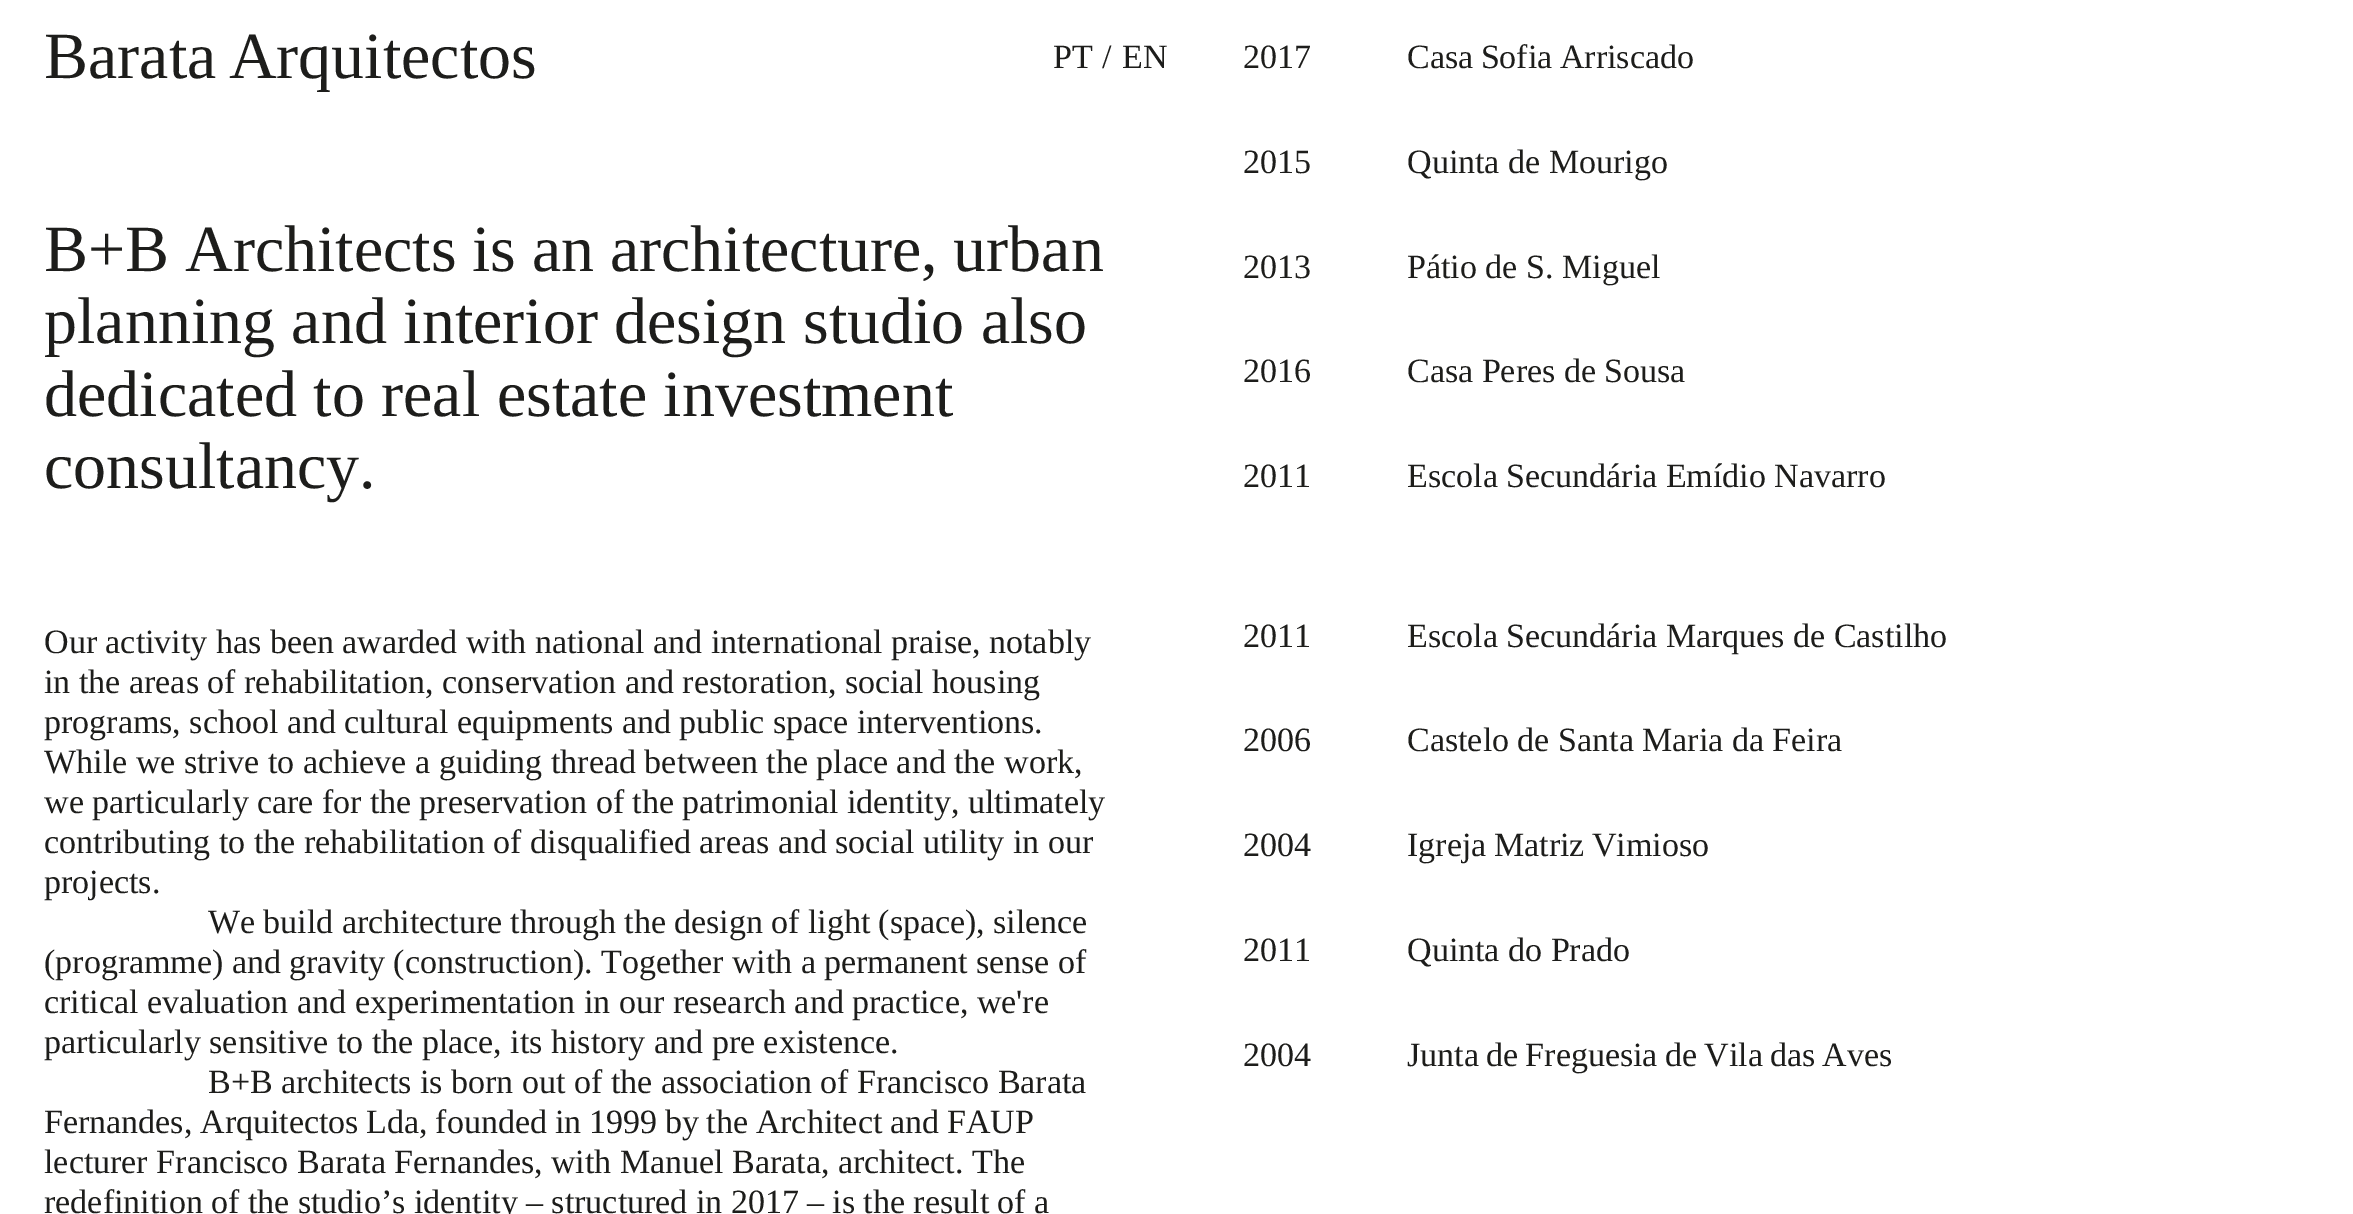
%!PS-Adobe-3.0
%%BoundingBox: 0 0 2353 1214
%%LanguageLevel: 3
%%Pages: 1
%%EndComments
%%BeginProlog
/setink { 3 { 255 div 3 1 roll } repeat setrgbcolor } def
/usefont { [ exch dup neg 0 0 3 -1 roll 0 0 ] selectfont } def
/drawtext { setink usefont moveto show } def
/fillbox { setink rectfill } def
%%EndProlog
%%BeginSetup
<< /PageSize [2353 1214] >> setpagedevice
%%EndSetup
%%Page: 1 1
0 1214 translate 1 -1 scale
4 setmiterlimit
0 0 2353 1214 255 255 255 fillbox
/LiberationSerif-Regular 66 usefont
29 29 27 setink
44 78 moveto -4 0 32 (Barata Arquitectos) widthshow
(PT) 1053 68 /LiberationSerif-Regular 34 29 29 27 drawtext
(/) 1102 68 /LiberationSerif-Regular 34 29 29 27 drawtext
(EN) 1122 68 /LiberationSerif-Regular 34 29 29 27 drawtext
/LiberationSerif-Regular 66 usefont
44 271 moveto -0.75 0 32 (B+B Architects is an architecture, urban) widthshow
(planning and interior design studio also) 44 343 /LiberationSerif-Regular 66 29 29 27 drawtext
(dedicated to real estate investment) 44 416 /LiberationSerif-Regular 66 29 29 27 drawtext
(consultancy.) 44 488 /LiberationSerif-Regular 66 29 29 27 drawtext
(Our activity has been awarded with national and international praise, notably) 44 653 /LiberationSerif-Regular 34 29 29 27 drawtext
(in the areas of rehabilitation, conservation and restoration, social housing) 44 693 /LiberationSerif-Regular 34 29 29 27 drawtext
(programs, school and cultural equipments and public space interventions.) 44 733 /LiberationSerif-Regular 34 29 29 27 drawtext
(While we strive to achieve a guiding thread between the place and the work,) 44 773 /LiberationSerif-Regular 34 29 29 27 drawtext
44 813 moveto -0.25 0 32 (we particularly care for the preservation of the patrimonial identity, ultimately) widthshow
(contributing to the rehabilitation of disqualified areas and social utility in our) 44 853 /LiberationSerif-Regular 34 29 29 27 drawtext
(projects.) 44 893 /LiberationSerif-Regular 34 29 29 27 drawtext
208 933 moveto -0.25 0 32 (We build architecture through the design of light \(space\), silence) widthshow
44 973 moveto -0.25 0 32 (\(programme\) and gravity \(construction\). Together with a permanent sense of) widthshow
(critical evaluation and experimentation in our research and practice, we're) 44 1013 /LiberationSerif-Regular 34 29 29 27 drawtext
(particularly sensitive to the place, its history and pre existence.) 44 1053 /LiberationSerif-Regular 34 29 29 27 drawtext
(B+B architects is born out of the association of Francisco Barata) 208 1093 /LiberationSerif-Regular 34 29 29 27 drawtext
44 1133 moveto -0.75 0 32 (Fernandes, Arquitectos Lda, founded in 1999 by the Architect and FAUP) widthshow
(lecturer Francisco Barata Fernandes, with Manuel Barata, architect. The) 44 1173 /LiberationSerif-Regular 34 29 29 27 drawtext
44 1213 moveto -0.1 0 32 (redefinition of the studio’s identity – structured in 2017 – is the result of a) widthshow
(2017) 1243 68 /LiberationSerif-Regular 34 29 29 27 drawtext
1407 68 moveto -1 0 32 (Casa Sofia Arriscado) widthshow
(2015) 1243 173 /LiberationSerif-Regular 34 29 29 27 drawtext
(Quinta de Mourigo) 1407 173 /LiberationSerif-Regular 34 29 29 27 drawtext
(2013) 1243 278 /LiberationSerif-Regular 34 29 29 27 drawtext
(Pátio de S. Miguel) 1407 278 /LiberationSerif-Regular 34 29 29 27 drawtext
(2016) 1243 382 /LiberationSerif-Regular 34 29 29 27 drawtext
(Casa Peres de Sousa) 1407 382 /LiberationSerif-Regular 34 29 29 27 drawtext
(2011) 1243 487 /LiberationSerif-Regular 34 29 29 27 drawtext
(Escola Secundária Emídio Navarro) 1407 487 /LiberationSerif-Regular 34 29 29 27 drawtext
(2011) 1243 647 /LiberationSerif-Regular 34 29 29 27 drawtext
(Escola Secundária Marques de Castilho) 1407 647 /LiberationSerif-Regular 34 29 29 27 drawtext
(2006) 1243 751 /LiberationSerif-Regular 34 29 29 27 drawtext
(Castelo de Santa Maria da Feira) 1407 751 /LiberationSerif-Regular 34 29 29 27 drawtext
(2004) 1243 856 /LiberationSerif-Regular 34 29 29 27 drawtext
1407 856 moveto -1 0 32 (Igreja Matriz Vimioso) widthshow
(2011) 1243 961 /LiberationSerif-Regular 34 29 29 27 drawtext
(Quinta do Prado) 1407 961 /LiberationSerif-Regular 34 29 29 27 drawtext
(2004) 1243 1066 /LiberationSerif-Regular 34 29 29 27 drawtext
1407 1066 moveto -1.25 0 32 (Junta de Freguesia de Vila das Aves) widthshow
showpage
%%EOF
